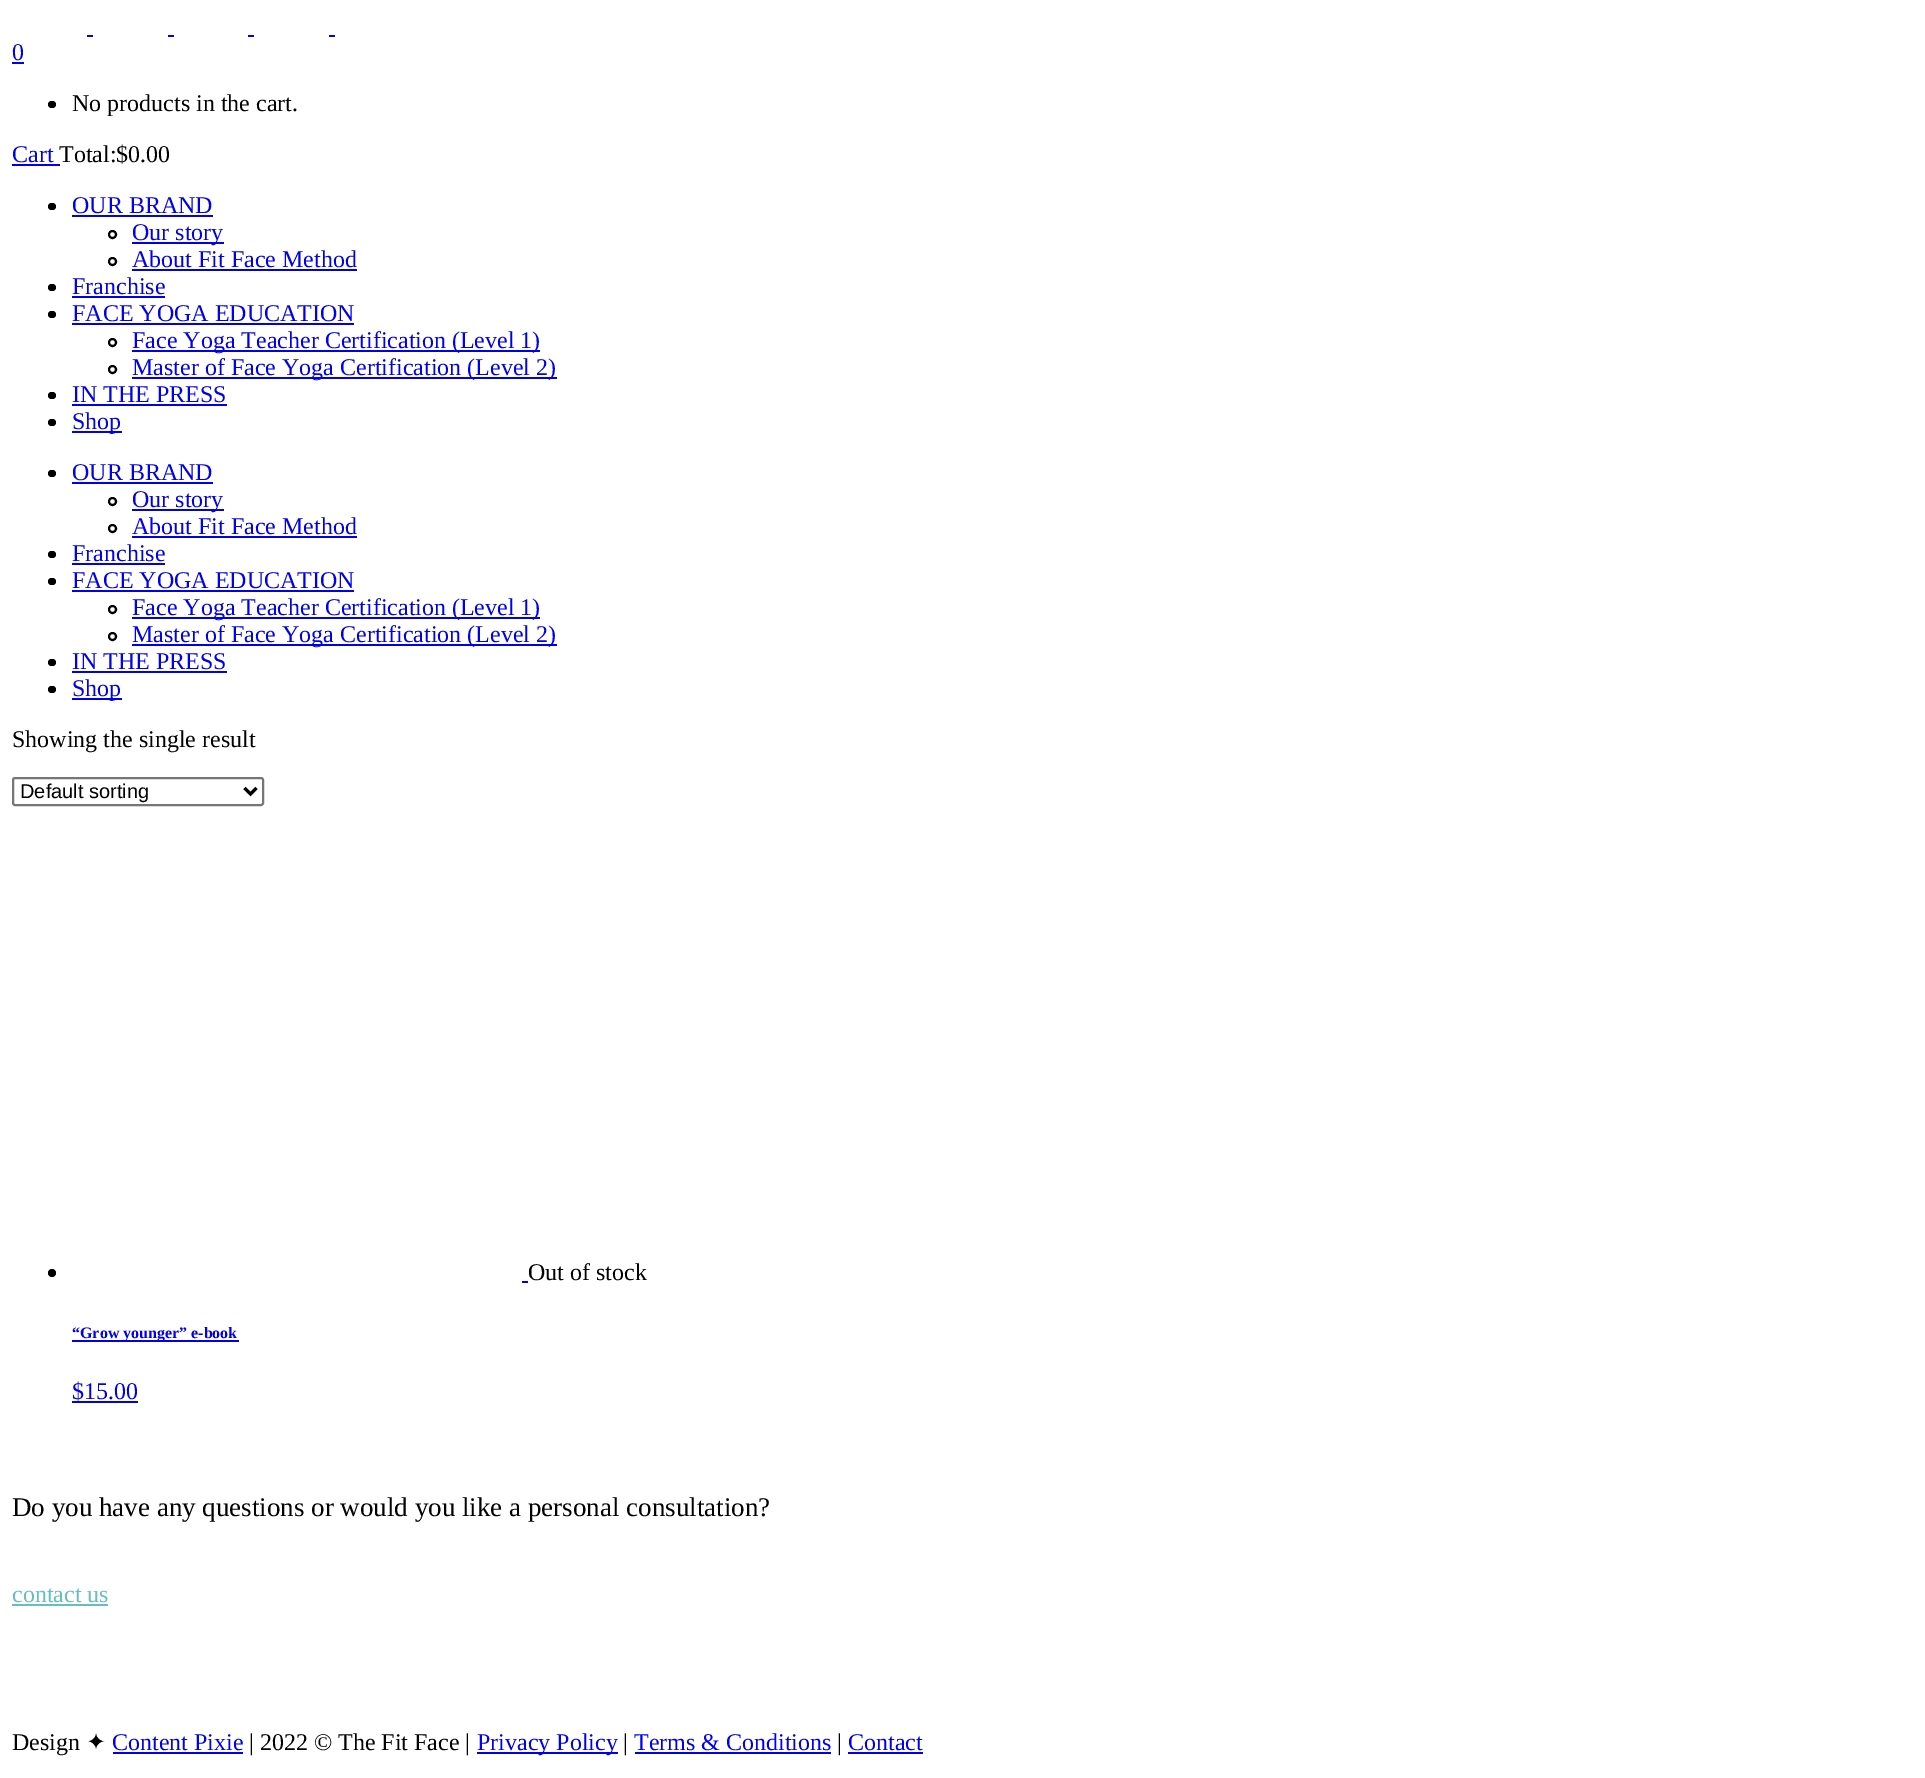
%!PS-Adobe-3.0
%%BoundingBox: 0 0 1925 1778
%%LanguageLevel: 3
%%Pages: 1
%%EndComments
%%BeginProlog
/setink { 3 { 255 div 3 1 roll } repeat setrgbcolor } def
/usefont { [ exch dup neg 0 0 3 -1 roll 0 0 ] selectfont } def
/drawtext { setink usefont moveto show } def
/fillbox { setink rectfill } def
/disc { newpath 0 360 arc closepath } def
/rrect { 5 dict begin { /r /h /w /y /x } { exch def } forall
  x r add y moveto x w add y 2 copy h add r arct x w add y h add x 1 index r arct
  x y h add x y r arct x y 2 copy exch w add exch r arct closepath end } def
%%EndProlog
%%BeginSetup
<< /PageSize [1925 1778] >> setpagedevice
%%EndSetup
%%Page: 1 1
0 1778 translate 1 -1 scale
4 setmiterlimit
0 0 1925 1778 255 255 255 fillbox
87 35 6 2 0 0 238 fillbox
168 35 6 2 0 0 238 fillbox
248 35 6 2 0 0 238 fillbox
329 35 6 2 0 0 238 fillbox
(0) 12 60 /LiberationSerif-Regular 24 0 0 238 drawtext
12 62 12 2 0 0 238 fillbox
0 0 0 setink
48 101 8 7 3.5 rrect fill
(No products in the cart.) 72 111 /LiberationSerif-Regular 24 0 0 0 drawtext
(Cart) 12 162 /LiberationSerif-Regular 24 0 0 238 drawtext
12 164 48 2 0 0 238 fillbox
(Total:$0.00) 59 162 /LiberationSerif-Regular 24 0 0 0 drawtext
48 203 8 7 3.5 rrect fill
(OUR BRAND) 72 213 /LiberationSerif-Regular 24 0 0 238 drawtext
72 215 141 2 0 0 238 fillbox
0 0 0 setink
2 setlinewidth
112.5 234.5 3.5 disc stroke
132 242 92 2 0 0 238 fillbox
(Our story) 132 240 /LiberationSerif-Regular 24 0 0 238 drawtext
0 0 0 setink
112.5 261.5 3.5 disc stroke
(About Fit Face Method) 132 267 /LiberationSerif-Regular 24 0 0 238 drawtext
132 269 225 2 0 0 238 fillbox
0 0 0 setink
48 284 8 7 3.5 rrect fill
(Franchise) 72 294 /LiberationSerif-Regular 24 0 0 238 drawtext
72 296 93 2 0 0 238 fillbox
0 0 0 setink
48 311 8 7 3.5 rrect fill
(FACE YOGA EDUCATION) 72 321 /LiberationSerif-Regular 24 0 0 238 drawtext
72 323 282 2 0 0 238 fillbox
0 0 0 setink
112.5 342.5 3.5 disc stroke
132 350 408 2 0 0 238 fillbox
(Face Yoga Teacher Certification \(Level 1\)) 132 348 /LiberationSerif-Regular 24 0 0 238 drawtext
0 0 0 setink
112.5 369.5 3.5 disc stroke
132 377 425 2 0 0 238 fillbox
(Master of Face Yoga Certification \(Level 2\)) 132 375 /LiberationSerif-Regular 24 0 0 238 drawtext
0 0 0 setink
48 392 8 7 3.5 rrect fill
(IN THE PRESS) 72 402 /LiberationSerif-Regular 24 0 0 238 drawtext
72 404 155 2 0 0 238 fillbox
0 0 0 setink
48 419 8 7 3.5 rrect fill
72 431 50 2 0 0 238 fillbox
(Shop) 72 429 /LiberationSerif-Regular 24 0 0 238 drawtext
0 0 0 setink
48 470 8 7 3.5 rrect fill
(OUR BRAND) 72 480 /LiberationSerif-Regular 24 0 0 238 drawtext
72 482 141 2 0 0 238 fillbox
0 0 0 setink
112.5 501.5 3.5 disc stroke
132 509 92 2 0 0 238 fillbox
(Our story) 132 507 /LiberationSerif-Regular 24 0 0 238 drawtext
0 0 0 setink
112.5 528.5 3.5 disc stroke
(About Fit Face Method) 132 534 /LiberationSerif-Regular 24 0 0 238 drawtext
132 536 225 2 0 0 238 fillbox
0 0 0 setink
48 551 8 7 3.5 rrect fill
(Franchise) 72 561 /LiberationSerif-Regular 24 0 0 238 drawtext
72 563 93 2 0 0 238 fillbox
0 0 0 setink
48 578 8 7 3.5 rrect fill
(FACE YOGA EDUCATION) 72 588 /LiberationSerif-Regular 24 0 0 238 drawtext
72 590 282 2 0 0 238 fillbox
0 0 0 setink
112.5 609.5 3.5 disc stroke
132 617 408 2 0 0 238 fillbox
(Face Yoga Teacher Certification \(Level 1\)) 132 615 /LiberationSerif-Regular 24 0 0 238 drawtext
0 0 0 setink
112.5 636.5 3.5 disc stroke
132 644 425 2 0 0 238 fillbox
(Master of Face Yoga Certification \(Level 2\)) 132 642 /LiberationSerif-Regular 24 0 0 238 drawtext
0 0 0 setink
48 659 8 7 3.5 rrect fill
(IN THE PRESS) 72 669 /LiberationSerif-Regular 24 0 0 238 drawtext
72 671 155 2 0 0 238 fillbox
0 0 0 setink
48 686 8 7 3.5 rrect fill
72 698 50 2 0 0 238 fillbox
(Shop) 72 696 /LiberationSerif-Regular 24 0 0 238 drawtext
(Showing the single result) 12 747 /LiberationSerif-Regular 24 0 0 0 drawtext
118 118 118 setink
13 778 250 27 2 rrect stroke
0 0 0 setink
3 setlinewidth
244.5 788 moveto 250.5 794 lineto 256.5 788 lineto stroke
(Default sorting) 20 798 /LiberationSans-Regular 20 0 0 0 drawtext
52 1273 4 disc fill
(Out of stock) 528 1280 /LiberationSerif-Regular 24 0 0 0 drawtext
522 1281 6 2 0 0 238 fillbox
72 1340 167 2 0 0 238 fillbox
(“Grow younger” e-book) 72 1338 /LiberationSerif-Bold 16 0 0 238 drawtext
($15.00) 72 1399 /LiberationSerif-Regular 24 0 0 238 drawtext
72 1401 66 2 0 0 238 fillbox
(Do you have any questions or would you like a personal consultation?) 12 1516 /LiberationSerif-Regular 27 0 0 0 drawtext
(contact us) 12 1602 /LiberationSerif-Regular 24 103 190 191 drawtext
12 1604 96 2 103 190 191 fillbox
(Design) 12 1750 /LiberationSerif-Regular 24 0 0 0 drawtext
(✦) 86 1750 /DejaVuSans-Regular 24 0 0 0 drawtext
(Content Pixie) 112 1750 /LiberationSerif-Regular 24 0 0 238 drawtext
113 1752 130 2 0 0 238 fillbox
(| 2022 © The Fit Face |) 249 1750 /LiberationSerif-Regular 24 0 0 0 drawtext
477 1752 141 2 0 0 238 fillbox
(Privacy Policy) 477 1750 /LiberationSerif-Regular 24 0 0 238 drawtext
(|) 623 1750 /LiberationSerif-Regular 24 0 0 0 drawtext
(Terms & Conditions) 634 1750 /LiberationSerif-Regular 24 0 0 238 drawtext
635 1752 196 2 0 0 238 fillbox
(|) 837 1750 /LiberationSerif-Regular 24 0 0 0 drawtext
(Contact) 848 1750 /LiberationSerif-Regular 24 0 0 238 drawtext
848 1752 75 2 0 0 238 fillbox
showpage
%%EOF
